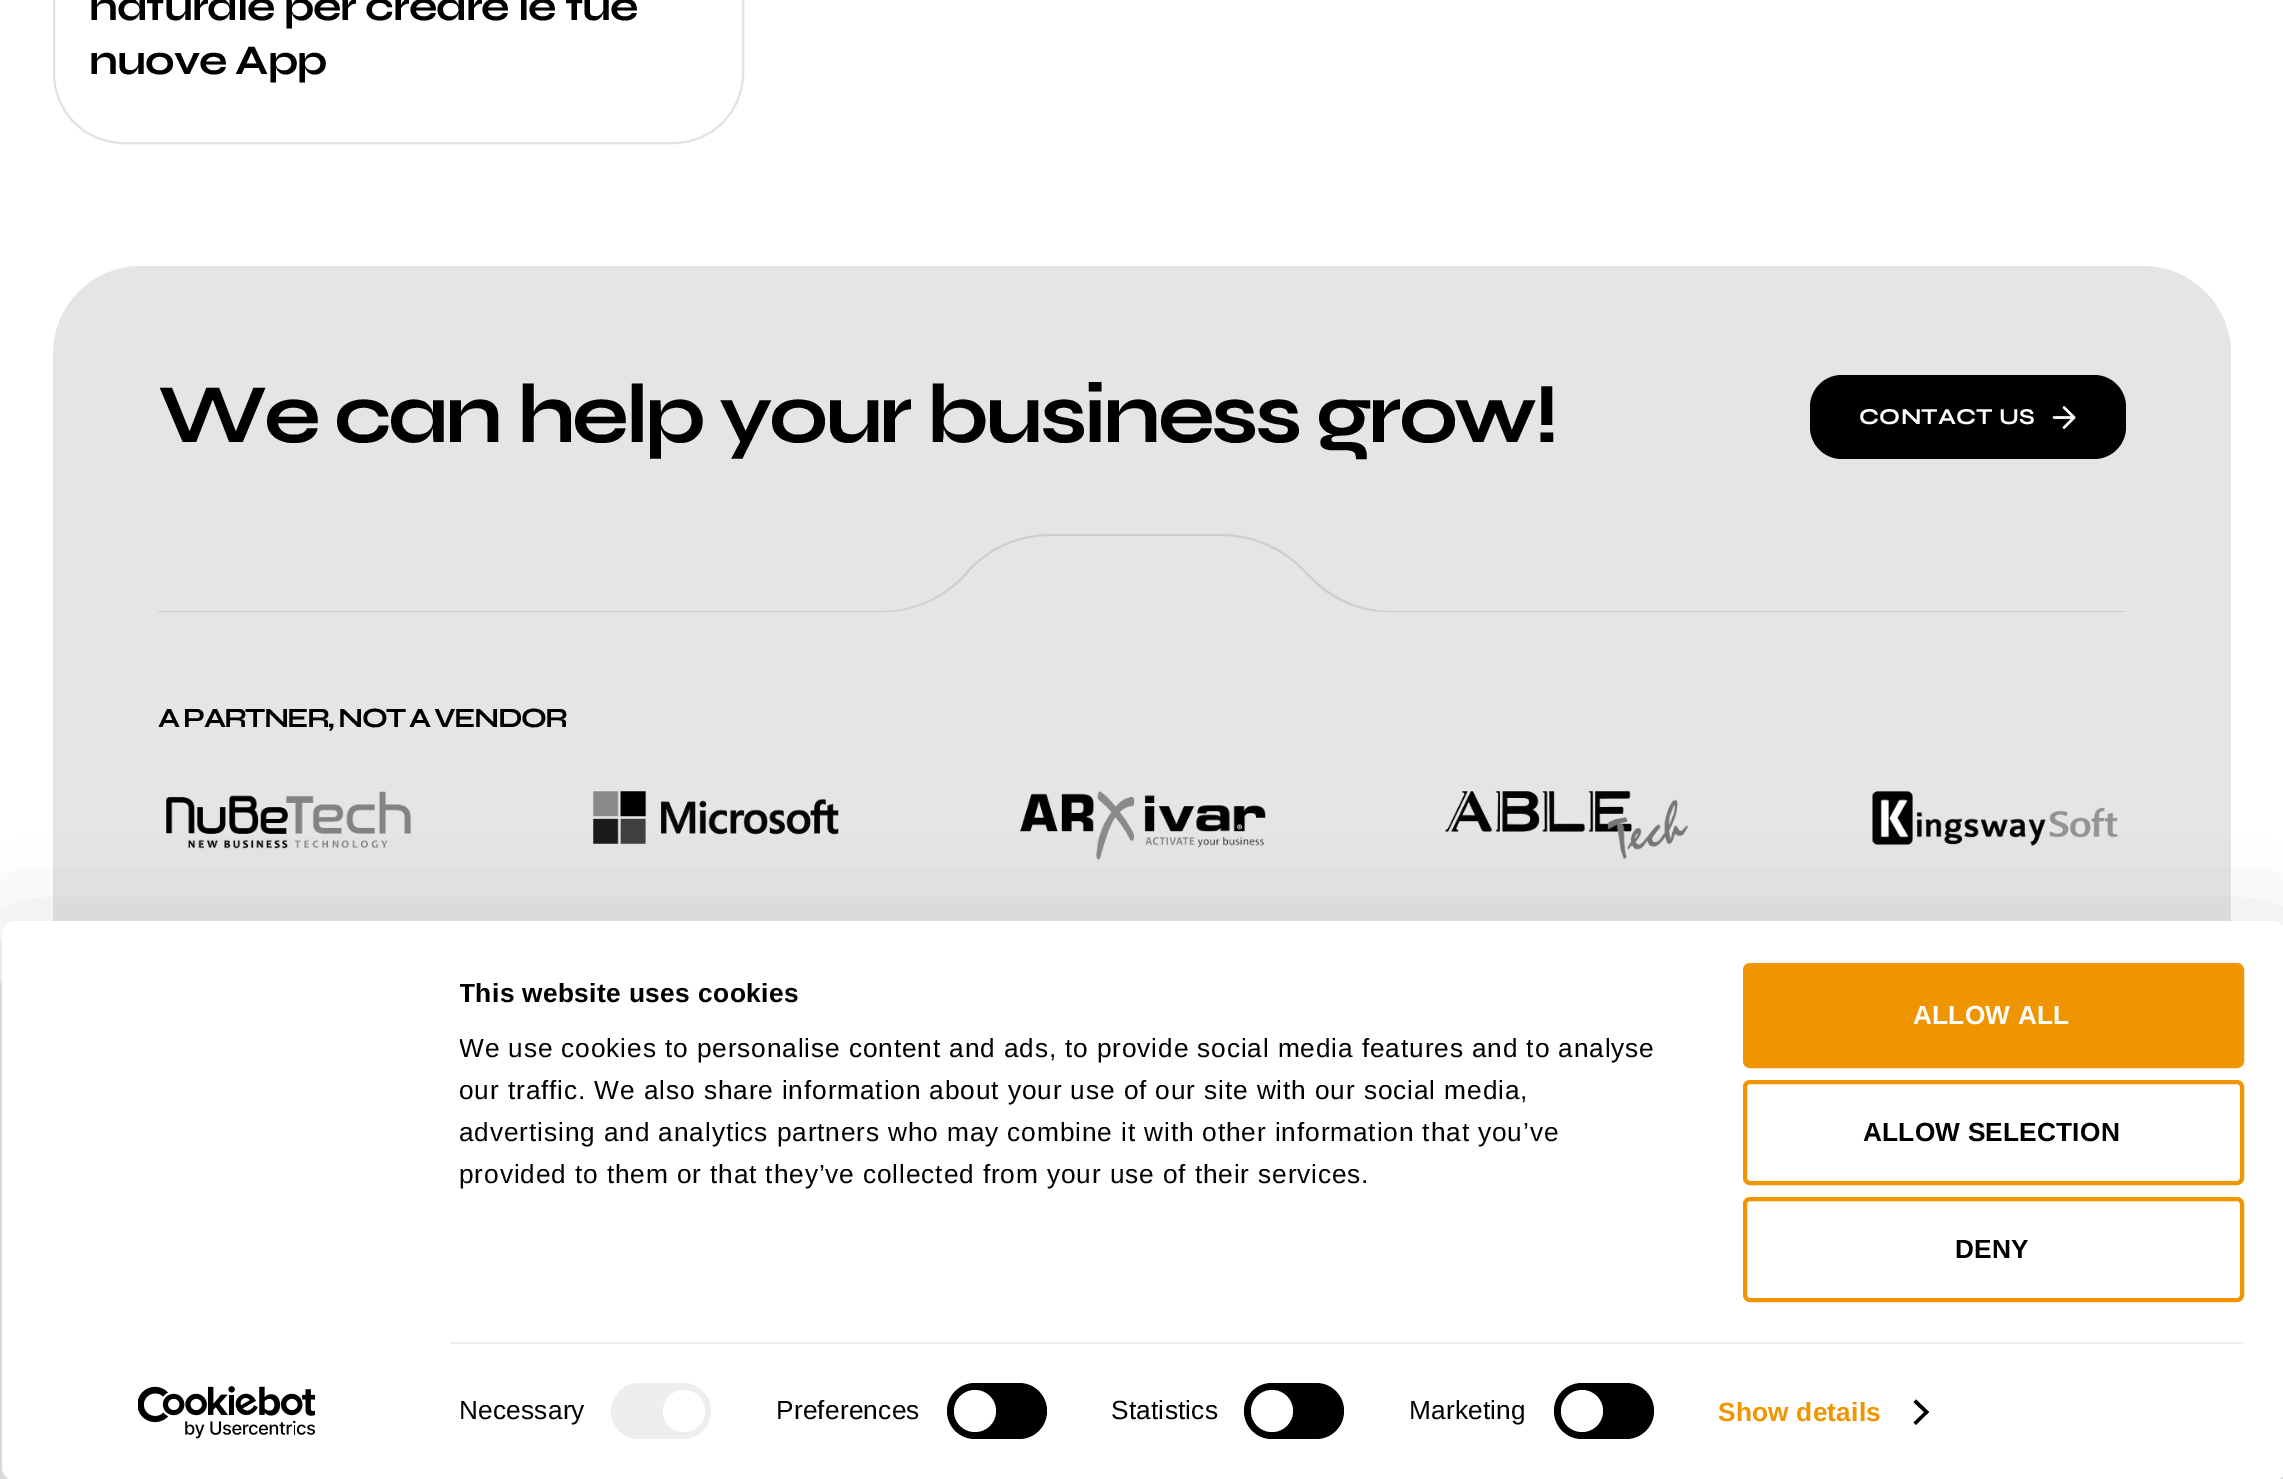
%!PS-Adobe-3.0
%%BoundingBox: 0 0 2283 1479
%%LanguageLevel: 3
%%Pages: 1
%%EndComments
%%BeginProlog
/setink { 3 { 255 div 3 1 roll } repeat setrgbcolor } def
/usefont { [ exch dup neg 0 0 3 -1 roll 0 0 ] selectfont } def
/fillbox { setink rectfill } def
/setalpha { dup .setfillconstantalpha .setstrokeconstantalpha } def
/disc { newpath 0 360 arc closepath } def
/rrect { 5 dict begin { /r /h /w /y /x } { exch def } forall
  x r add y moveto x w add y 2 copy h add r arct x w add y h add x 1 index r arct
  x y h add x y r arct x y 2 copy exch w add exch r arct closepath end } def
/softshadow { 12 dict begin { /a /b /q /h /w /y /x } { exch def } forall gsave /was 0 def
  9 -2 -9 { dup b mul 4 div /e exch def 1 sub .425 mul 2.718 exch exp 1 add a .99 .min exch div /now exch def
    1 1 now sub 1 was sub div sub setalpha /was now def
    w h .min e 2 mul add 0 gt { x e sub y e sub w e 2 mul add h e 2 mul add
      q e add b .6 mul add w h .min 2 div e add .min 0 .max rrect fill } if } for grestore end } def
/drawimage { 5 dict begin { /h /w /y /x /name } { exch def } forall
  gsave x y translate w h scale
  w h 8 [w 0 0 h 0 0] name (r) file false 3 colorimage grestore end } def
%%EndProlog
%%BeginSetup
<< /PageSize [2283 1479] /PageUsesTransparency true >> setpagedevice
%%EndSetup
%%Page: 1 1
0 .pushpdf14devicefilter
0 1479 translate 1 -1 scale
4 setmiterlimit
0 0 2283 1479 255 255 255 fillbox
226 226 226 setink
2 setlinewidth
54 -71 689 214 69 rrect stroke
/Syne-Bold 42 usefont
0 0 0 setink
89 20 moveto -1.05 0 (naturale per creare le tue) ashow
89 74 moveto -1.05 0 (nuove App) ashow
229 229 229 setink
141 266 moveto 2143 266 lineto 2191.5 266 2231 305.5 2231 354 curveto 2231 1034 lineto 53 1034 lineto 53 354 lineto 53 305.5 92.5 266 141 266 curveto closepath fill
/Syne-Bold 84 usefont
0 0 0 setink
158 442 moveto -3.5 0 (We can help your business grow!) ashow
1810 375 316 84 32 rrect fill
/Syne-Bold 22.75 usefont
255 255 255 setink
1859 424 moveto 0.2 0 (CONTACT US) ashow
(assets/img1.rgb) 2052 406 24 23 drawimage
gsave
158 534 1968 79 rectclip
206 206 206 setink
1221 534 moveto 1254 534 1285 548 1306 572 curveto 1307 572 lineto 1329 597 1360 611 1392 611 curveto 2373 611 lineto 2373 612 lineto 1392 612 lineto 1359 613 1328 599 1307 575 curveto 1306 574 lineto 1284 550 1253 536 1221 536 curveto 1050 536 lineto 1019 536 989 549 968 573 curveto 967 574 lineto 946 598 915 612 883 612 curveto -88 612 lineto -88 611 lineto 883 611 lineto 914 611 944 597 965 573 curveto 966 572 lineto 987 548 1018 534 1050 534 curveto closepath fill
grestore
/Syne-Bold 28 usefont
0 0 0 setink
158 727 moveto -1.75 0 (A PARTNER, NOT A VENDOR) ashow
(assets/img2.rgb) 166 791 246 58 drawimage
(assets/img3.rgb) 593 791 246 53 drawimage
(assets/img4.rgb) 1020 791 246 69 drawimage
(assets/img5.rgb) 1445 791 243 68 drawimage
(assets/img6.rgb) 1872 791 246 55 drawimage
gsave
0 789 moveto 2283 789 lineto 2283 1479 lineto 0 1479 lineto closepath 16 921 moveto 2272 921 lineto 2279.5 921 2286 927.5 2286 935 curveto 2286 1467 lineto 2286 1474.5 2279.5 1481 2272 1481 curveto 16 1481 lineto 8.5 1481 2 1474.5 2 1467 curveto 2 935 lineto 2 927.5 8.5 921 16 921 curveto closepath eoclip newpath
2 973 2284 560 14 61 0.3 softshadow
grestore
255 255 255 setink
2 921 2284 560 14 rrect fill
gsave
460 973 1232 319 rectclip
/LiberationSans-Bold 26.25 usefont
0 0 0 setink
459 1002 moveto 0.4 0 (This website uses cookies) ashow
/LiberationSans-Regular 26.25 usefont
459 1057 moveto 0.88 0 (We use cookies to personalise content and ads, to provide social media features and to analyse) ashow
459 1099 moveto 0.88 0 (our traffic. We also share information about your use of our site with our social media,) ashow
grestore
/LiberationSans-Regular 26.25 usefont
0 0 0 setink
459 1141 moveto 0.88 0 (advertising and analytics partners who may combine it with other information that you’ve) ashow
459 1183 moveto 0.88 0 (provided to them or that they’ve collected from your use of their services.) ashow
450 1342 1794 2 238 238 238 fillbox
0 0 0 setink
459 1419 moveto 0.2 0 (Necessary) ashow
238 238 238 setink
611 1383 100 56 28 rrect fill
255 255 255 setink
684 1411 21 disc fill
0 0 0 setink
776 1419 moveto 0.2 0 (Preferences) ashow
947 1383 100 56 28 rrect fill
255 255 255 setink
975 1411 21 disc fill
0 0 0 setink
1111 1419 moveto 0.2 0 (Statistics) ashow
1244 1383 100 56 28 rrect fill
255 255 255 setink
1272 1411 21 disc fill
0 0 0 setink
1409 1419 moveto 0.2 0 (Marketing) ashow
1554 1383 100 56 28 rrect fill
255 255 255 setink
1582 1411 21 disc fill
/LiberationSans-Bold 26.25 usefont
240 149 2 setink
1718 1421 moveto 0.2 0 (Show details) ashow
0 0 0 setink
1916 1399.5 moveto 1929 1412 lineto 1926.5 1414.5 lineto 1913.5 1402 lineto closepath fill
1926.5 1410 moveto 1929 1412 lineto 1916 1425 lineto 1913.5 1422.5 lineto closepath fill
240 149 2 setink
1745 965 497 101 5 rrect gsave fill grestore
4 setlinewidth
stroke
255 255 255 setink
1913 1024 moveto 0.2 0 (ALLOW ALL) ashow
240 149 2 setink
1745 1082 497 101 5 rrect stroke
0 0 0 setink
1863 1141 moveto 0.2 0 (ALLOW SELECTION) ashow
240 149 2 setink
1745 1199 497 101 5 rrect stroke
0 0 0 setink
1955 1258 moveto 0.2 0 (DENY) ashow
(assets/img7.rgb) 138 1386 177 53 drawimage
.poppdf14devicefilter showpage
%%EOF
